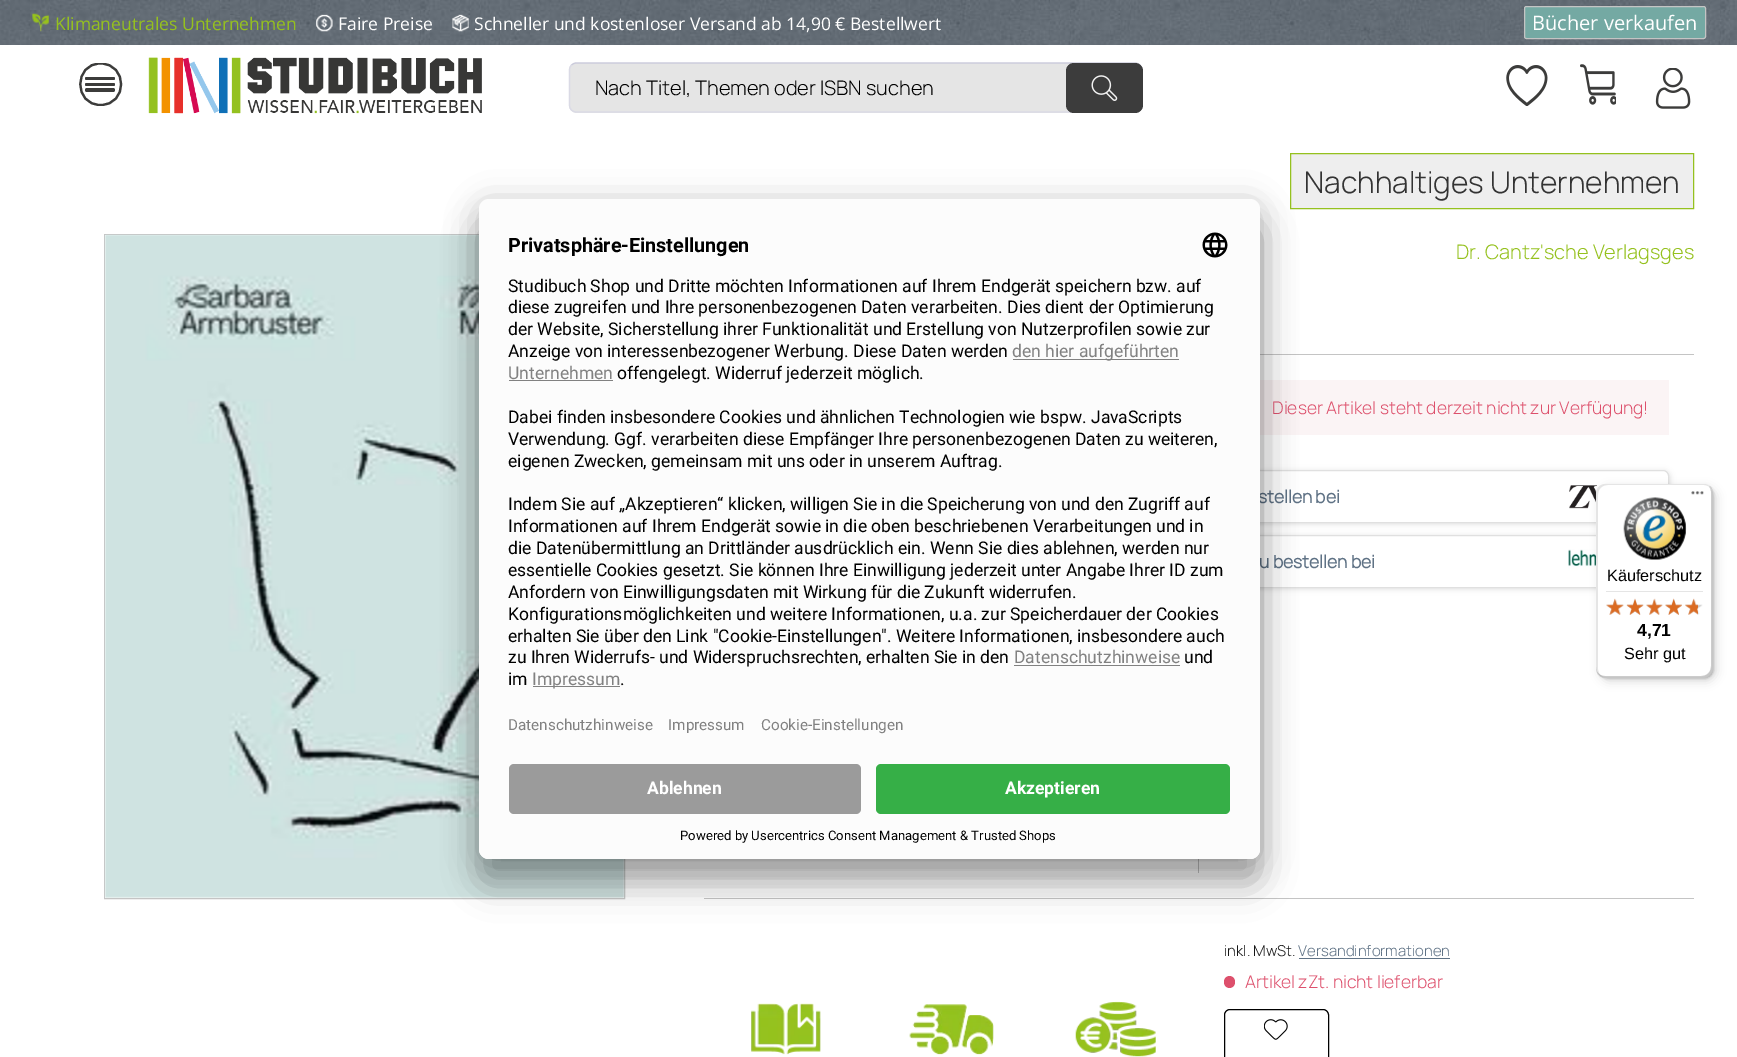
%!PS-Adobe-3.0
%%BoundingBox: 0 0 1737 1057
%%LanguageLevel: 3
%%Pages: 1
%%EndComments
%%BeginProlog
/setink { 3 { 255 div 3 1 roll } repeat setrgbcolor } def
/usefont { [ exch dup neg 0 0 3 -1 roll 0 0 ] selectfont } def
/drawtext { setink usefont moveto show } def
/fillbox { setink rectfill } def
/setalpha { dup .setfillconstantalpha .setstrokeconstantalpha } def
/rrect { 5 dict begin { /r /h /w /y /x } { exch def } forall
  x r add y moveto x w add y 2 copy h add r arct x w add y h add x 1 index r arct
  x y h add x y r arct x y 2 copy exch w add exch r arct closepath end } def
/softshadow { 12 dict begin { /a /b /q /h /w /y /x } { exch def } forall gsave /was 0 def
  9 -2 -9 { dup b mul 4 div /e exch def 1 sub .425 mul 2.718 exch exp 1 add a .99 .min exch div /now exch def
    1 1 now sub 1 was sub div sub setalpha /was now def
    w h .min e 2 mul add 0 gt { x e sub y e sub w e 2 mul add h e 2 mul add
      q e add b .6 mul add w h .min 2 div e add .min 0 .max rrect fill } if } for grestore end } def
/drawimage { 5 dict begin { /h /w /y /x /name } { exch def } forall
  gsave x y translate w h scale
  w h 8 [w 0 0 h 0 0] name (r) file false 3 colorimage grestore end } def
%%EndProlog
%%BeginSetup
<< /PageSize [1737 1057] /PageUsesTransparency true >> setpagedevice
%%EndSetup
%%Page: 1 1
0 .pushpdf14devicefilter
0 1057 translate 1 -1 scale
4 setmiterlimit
0 0 1737 1057 255 255 255 fillbox
(assets/img1.rgb) 0 0 1737 45 drawimage
(assets/img2.rgb) 32 13 17 19 drawimage
(Klimaneutrales Unternehmen) 55 30 /OpenSans-Regular 17.5 149 193 30 drawtext
(assets/img3.rgb) 316 14 17 18 drawimage
(Faire Preise) 338 30 /OpenSans-Regular 17.5 255 255 255 drawtext
(assets/img4.rgb) 452 14 17 18 drawimage
(Schneller und kostenloser Versand ab 14,90 € Bestellwert) 474 30 /OpenSans-Regular 17.5 255 255 255 drawtext
116 169 163 setink
1524.5 6.5 181 32 2 rrect gsave fill grestore
196 196 196 setink
stroke
(Bücher verkaufen) 1532 30 /OpenSans-Regular 20 255 255 255 drawtext
(assets/img5.rgb) 148 57 334 57 drawimage
229 229 229 setink
569 63 574 50 8 rrect fill
203 203 219 setink
1.2 setlinewidth
571.5 65 moveto 572.5 64 574.5 63 576 63 curveto 1135 63 lineto 1137 63 1138.5 64 1140 65 curveto stroke
218 218 229 setink
1140 65 moveto 1141 66.5 1142 68 1142 70 curveto 1142 105 lineto 1142 107 1141 108.5 1140 110 curveto 1138.5 111 1137 112 1135 112 curveto 576 112 lineto 574.5 112 572.5 111 571.5 110 curveto 570 108.5 569.5 107 569.5 105 curveto 569.5 70 lineto 569.5 68 570 66.5 571.5 65 curveto stroke
(Nach Titel, Themen oder ISBN suchen) 595 95 /Manrope-Light 20 0 0 0 drawtext
60 60 60 setink
1066 63 77 50 8 rrect fill
(assets/img6.rgb) 1091 75 27 26 drawimage
(assets/img7.rgb) 1506 65 42 41 drawimage
(assets/img8.rgb) 1580 64 36 41 drawimage
(assets/img9.rgb) 1655 68 36 41 drawimage
gsave
79 63 44 43 rectclip
60 60 59 setink
2.2 setlinewidth
100.5 105 moveto 128 105 128 63.5 100.5 63.5 curveto 73.5 63.5 73.5 105 100.5 105 curveto closepath stroke
grestore
60 60 59 setink
85 83 30 3 1.5 rrect fill
85 88 30 4 2 rrect fill
85 77 30 3 1.5 rrect fill
238 238 238 setink
1290.5 153.5 moveto 1693.5 153.5 lineto 1693.5 208.5 lineto 1290.5 208.5 lineto closepath gsave fill grestore
149 193 30 setink
1 setlinewidth
stroke
(Nachhaltiges Unternehmen) 1304 193 /Manrope-Light 30 51 51 51 drawtext
196 196 196 setink
104.5 234.5 520 664 rectstroke
(assets/img10.rgb) 104 234 521 664 drawimage
1260 354 434 1 196 196 196 fillbox
(Dr. Cantz'sche Verlagsges) 1456 259 /Manrope-Light 20 149 193 30 drawtext
704 898 990 1 196 196 196 fillbox
1260 380 409 55 251 244 245 fillbox
(Dieser Artikel steht derzeit nicht zur Verfügung!) 1272 414 /Manrope-Light 17.5 221 80 108 drawtext
0 0 0 setink
1225 471 445 53 6 3 0.13 softshadow
255 255 255 setink
1224.5 470.5 444 52 5.5 rrect gsave fill grestore
224 224 224 setink
stroke
(stellen bei) 1258 503 /Manrope-Bold 17.5 95 114 133 drawtext
(assets/img11.rgb) 1569 485 33 24 drawimage
0 0 0 setink
1225 536 445 53 6 3 0.13 softshadow
1260 536 336 51 255 255 255 fillbox
224 224 224 setink
1224.5 535.5 444 52 rectstroke
(u bestellen bei) 1259 568 /Manrope-Bold 17.5 95 114 133 drawtext
(assets/img12.rgb) 1568 549 28 24 drawimage
1198 859 1 14 196 196 196 fillbox
(inkl. MwSt.) 1224 956 /Manrope-Light 15 21 21 21 drawtext
(Versandinformationen) 1298 956 /Manrope-Light 15 95 114 133 drawtext
1299 958 151 1 95 114 133 fillbox
221 80 108 setink
1224 976 11 12 5.5 rrect fill
(Artikel zZt. nicht lieferbar) 1245 988 /Manrope-Light 17.5 221 80 108 drawtext
0 0 0 setink
1224.5 1009.5 104 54 5.5 rrect stroke
(assets/img13.rgb) 1264 1019 24 21 drawimage
(assets/img14.rgb) 751 1003 70 52 drawimage
(assets/img15.rgb) 909 1004 85 51 drawimage
(assets/img16.rgb) 1075 1001 81 56 drawimage
479 224 781 660 10 17.5 0.3 softshadow
479 205 781 660 10 16 0.22 softshadow
252 252 252 setink
479 199 781 660 10 rrect fill
(Privatsphäre-Einstellungen) 508 252 /Roboto-Bold 19.75 0 0 0 drawtext
(assets/img17.rgb) 1202 232 26 26 drawimage
(Studibuch Shop und Dritte möchten Informationen auf Ihrem Endgerät speichern bzw. auf) 508 292 /Roboto-Regular 17.5 0 0 0 drawtext
(diese zugreifen und Ihre personenbezogenen Daten verarbeiten. Dies dient der Optimierung) 508 313 /Roboto-Regular 17.5 0 0 0 drawtext
(der Website, Sicherstellung ihrer Funktionalität und Erstellung von Nutzerprofilen sowie zur) 508 335 /Roboto-Regular 17.5 0 0 0 drawtext
(Anzeige von interessenbezogener Werbung. Diese Daten werden) 508 357 /Roboto-Regular 17.5 0 0 0 drawtext
1013 359 166 1 129 129 129 fillbox
(den hier aufgeführten) 1012 357 /Roboto-Regular 17.5 129 129 129 drawtext
(Unternehmen) 508 379 /Roboto-Regular 17.5 129 129 129 drawtext
509 380 104 1 129 129 129 fillbox
(offengelegt. Widerruf jederzeit möglich.) 617 379 /Roboto-Regular 17.5 0 0 0 drawtext
(Dabei finden insbesondere Cookies und ähnlichen Technologien wie bspw. JavaScripts) 508 423 /Roboto-Regular 17.5 0 0 0 drawtext
(Verwendung. Ggf. verarbeiten diese Empfänger Ihre personenbezogenen Daten zu weiteren,) 508 445 /Roboto-Regular 17.5 0 0 0 drawtext
(eigenen Zwecken, gemeinsam mit uns oder in unserem Auftrag.) 508 467 /Roboto-Regular 17.5 0 0 0 drawtext
(Indem Sie auf „Akzeptieren“ klicken, willigen Sie in die Speicherung von und den Zugriff auf) 508 510 /Roboto-Regular 17.5 0 0 0 drawtext
(Informationen auf Ihrem Endgerät sowie in die oben beschriebenen Verarbeitungen und in) 508 532 /Roboto-Regular 17.5 0 0 0 drawtext
(die Datenübermittlung an Drittländer ausdrücklich ein. Wenn Sie dies ablehnen, werden nur) 508 554 /Roboto-Regular 17.5 0 0 0 drawtext
(essentielle Cookies gesetzt. Sie können Ihre Einwilligung jederzeit unter Angabe Ihrer ID zum) 508 576 /Roboto-Regular 17.5 0 0 0 drawtext
(Anfordern von Einwilligungsdaten mit Wirkung für die Zukunft widerrufen.) 508 598 /Roboto-Regular 17.5 0 0 0 drawtext
(Konfigurationsmöglichkeiten und weitere Informationen, u.a. zur Speicherdauer der Cookies) 508 620 /Roboto-Regular 17.5 0 0 0 drawtext
(erhalten Sie über den Link "Cookie-Einstellungen". Weitere Informationen, insbesondere auch) 508 642 /Roboto-Regular 17.5 0 0 0 drawtext
(zu Ihren Widerrufs- und Widerspruchsrechten, erhalten Sie in den) 508 663 /Roboto-Regular 17.5 0 0 0 drawtext
(Datenschutzhinweise) 1014 663 /Roboto-Regular 17.5 129 129 129 drawtext
1014 665 166 1 129 129 129 fillbox
(und) 1184 663 /Roboto-Regular 17.5 0 0 0 drawtext
(im) 508 685 /Roboto-Regular 17.5 0 0 0 drawtext
533 686 87 1 129 129 129 fillbox
(Impressum) 532 685 /Roboto-Regular 17.5 129 129 129 drawtext
(.) 620 685 /Roboto-Regular 17.5 0 0 0 drawtext
(Datenschutzhinweise) 508 730 /Roboto-Regular 15.25 129 129 129 drawtext
(Impressum) 668 730 /Roboto-Regular 15.25 129 129 129 drawtext
(Cookie-Einstellungen) 761 730 /Roboto-Regular 15.25 129 129 129 drawtext
252 252 252 setink
479 754 moveto 1260 754 lineto 1260 849 lineto 1260 854.5 1255.5 859 1250 859 curveto 489 859 lineto 483.5 859 479 854.5 479 849 curveto closepath fill
155 155 155 setink
509 764 352 50 5 rrect fill
(Ablehnen) 647 794 /Roboto-Bold 17.5 255 255 255 drawtext
54 175 71 setink
876 764 354 50 5 rrect fill
(Akzeptieren) 1005 794 /Roboto-Bold 17.5 255 255 255 drawtext
(Powered by Usercentrics Consent Management & Trusted Shops) 680 840 /Roboto-Regular 13.1 0 0 0 drawtext
1600 488 116 193 10 5 0.15 softshadow
1598 485 116 194 10 1 0.15 softshadow
255 255 255 setink
1596 484 117 194 10 rrect fill
0.1 setalpha
0 0 0 setink
1608 485 moveto 1704 485 lineto 1706 485 1709 486 1711 488 curveto 1709 485 1706 484 1703 484 curveto 1606 484 lineto 1600 484 1596 488 1596 494 curveto 1596 668 lineto 1596 672 1599 676 1603 677 curveto 1600 676 1598 672 1598 669 curveto 1598 495 lineto 1598 489 1602 485 1608 485 curveto closepath fill
0.2 setalpha
1597 672 moveto 1599 676 1602 678 1606 678 curveto 1703 678 lineto 1709 678 1713 674 1713 668 curveto 1713 494 lineto 1713 491 1711 488 1709 486 curveto 1710 488 1711 490 1711 492 curveto 1711 666 lineto 1711 672 1707 676 1701 676 curveto 1605 676 lineto 1602 676 1599 675 1597 672 curveto closepath fill
50 50 50 setink
1596 667 moveto 1596 668 lineto 1596 674 1600 678 1606 678 curveto 1703 678 lineto 1709 678 1713 674 1713 668 curveto 1713 494 lineto 1713 491 1712 488 1710 486 curveto 1711 488 1712 490 1712 493 curveto 1712 667 lineto 1712 672 1707 677 1702 677 curveto 1606 677 lineto 1600 677 1596 672 1596 667 curveto closepath fill
0.3 setalpha
255 255 255 setink
1596 667 moveto 1596 668 lineto 1596 674 1600 678 1606 678 curveto 1703 678 lineto 1709 678 1713 674 1713 668 curveto 1713 494 lineto 1713 490 1711 487 1708 485 curveto 1710 487 1712 490 1712 493 curveto 1712 667 lineto 1712 672 1707 677 1702 677 curveto 1606 677 lineto 1600 677 1596 672 1596 667 curveto closepath fill
1 setalpha
(assets/img18.rgb) 1691 491 13 4 drawimage
(assets/img19.rgb) 1623 497 64 63 drawimage
(Käuferschutz) 1607 581 /LiberationSans-Regular 16.25 0 0 0 drawtext
1606 591 97 1 229 229 229 fillbox
(assets/img25.rgb) 1606 599 18 16 drawimage
(assets/img20.rgb) 1606 598 18 17 drawimage
(assets/img26.rgb) 1627 599 17 16 drawimage
(assets/img21.rgb) 1626 598 18 17 drawimage
(assets/img27.rgb) 1646 599 17 16 drawimage
(assets/img22.rgb) 1646 598 17 17 drawimage
(assets/img28.rgb) 1665 599 17 16 drawimage
(assets/img23.rgb) 1665 598 17 17 drawimage
(assets/img29.rgb) 1685 599 18 16 drawimage
(assets/img24.rgb) 1685 598 13 17 drawimage
(4,71) 1637 636 /LiberationSans-Bold 17.5 0 0 0 drawtext
(Sehr gut) 1624 659 /LiberationSans-Regular 16.25 0 0 0 drawtext
.poppdf14devicefilter showpage
%%EOF
